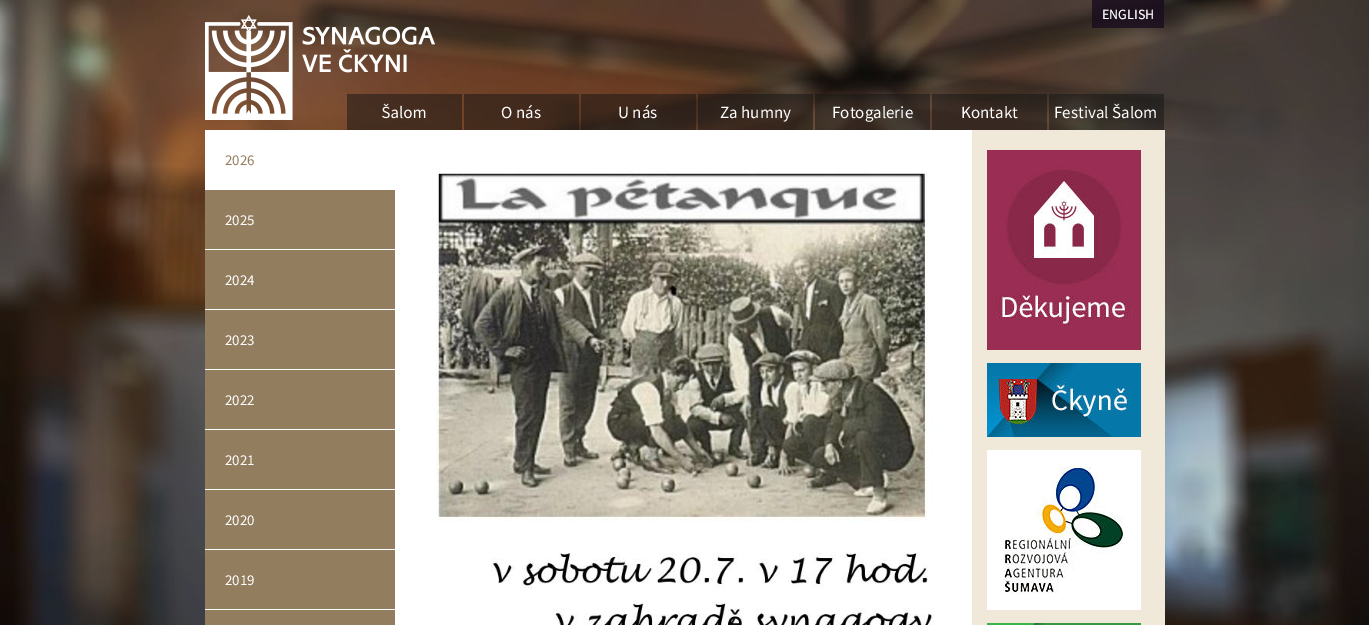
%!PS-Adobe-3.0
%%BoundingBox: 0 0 1369 625
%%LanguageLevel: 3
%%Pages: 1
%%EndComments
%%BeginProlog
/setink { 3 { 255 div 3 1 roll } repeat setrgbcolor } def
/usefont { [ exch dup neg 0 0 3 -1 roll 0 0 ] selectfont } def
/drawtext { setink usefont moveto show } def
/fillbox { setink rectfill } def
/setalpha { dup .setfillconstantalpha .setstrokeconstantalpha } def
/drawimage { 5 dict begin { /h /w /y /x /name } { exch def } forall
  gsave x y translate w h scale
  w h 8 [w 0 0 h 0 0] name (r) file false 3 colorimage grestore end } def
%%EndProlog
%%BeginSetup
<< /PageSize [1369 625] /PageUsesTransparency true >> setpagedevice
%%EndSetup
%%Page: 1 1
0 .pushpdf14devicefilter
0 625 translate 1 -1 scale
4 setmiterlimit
0 0 1369 625 255 255 255 fillbox
(assets/img1.rgb) 0 0 1369 625 drawimage
0.55 setalpha
1092 0 72 28 24 11 29 fillbox
1 setalpha
(ENGLISH) 1102 19 /SourceSansPro-Regular 14 255 255 255 drawtext
0.5 setalpha
347 94 115 36 20 20 20 fillbox
1 setalpha
(Šalom) 381 118 /SourceSansPro-Regular 17 255 255 255 drawtext
(assets/img2.rgb) 205 15 230 105 drawimage
0.55 setalpha
1092 0 72 28 24 11 29 fillbox
1 setalpha
(ENGLISH) 1102 19 /SourceSansPro-Regular 14 255 255 255 drawtext
0.5 setalpha
464 94 115 36 20 20 20 fillbox
1 setalpha
(O nás) 501 118 /SourceSansPro-Regular 17 255 255 255 drawtext
0.5 setalpha
581 94 115 36 20 20 20 fillbox
1 setalpha
(U nás) 618 118 /SourceSansPro-Regular 17 255 255 255 drawtext
0.5 setalpha
698 94 115 36 20 20 20 fillbox
1 setalpha
(Za humny) 720 118 /SourceSansPro-Regular 17 255 255 255 drawtext
0.5 setalpha
815 94 115 36 20 20 20 fillbox
1 setalpha
(Fotogalerie) 832 118 /SourceSansPro-Regular 17 255 255 255 drawtext
0.5 setalpha
932 94 115 36 20 20 20 fillbox
1 setalpha
(Kontakt) 961 118 /SourceSansPro-Regular 17 255 255 255 drawtext
0.5 setalpha
1049 94 115 36 20 20 20 fillbox
1 setalpha
(Festival Šalom) 1054 118 /SourceSansPro-Regular 17 255 255 255 drawtext
972 130 193 495 240 233 217 fillbox
205 130 190 60 255 255 255 fillbox
(2026) 225 165 /SourceSansPro-Regular 15 146 125 94 drawtext
205 190 190 59 146 125 94 fillbox
205 249 190 1 255 255 255 fillbox
(2025) 225 225 /SourceSansPro-Regular 15 255 255 255 drawtext
205 250 190 59 146 125 94 fillbox
205 309 190 1 255 255 255 fillbox
(2024) 225 285 /SourceSansPro-Regular 15 255 255 255 drawtext
205 310 190 59 146 125 94 fillbox
205 369 190 1 255 255 255 fillbox
(2023) 225 345 /SourceSansPro-Regular 15 255 255 255 drawtext
205 370 190 59 146 125 94 fillbox
205 429 190 1 255 255 255 fillbox
(2022) 225 405 /SourceSansPro-Regular 15 255 255 255 drawtext
205 430 190 59 146 125 94 fillbox
205 489 190 1 255 255 255 fillbox
(2021) 225 465 /SourceSansPro-Regular 15 255 255 255 drawtext
205 490 190 59 146 125 94 fillbox
205 549 190 1 255 255 255 fillbox
(2020) 225 525 /SourceSansPro-Regular 15 255 255 255 drawtext
205 550 190 59 146 125 94 fillbox
205 609 190 1 255 255 255 fillbox
(2019) 225 585 /SourceSansPro-Regular 15 255 255 255 drawtext
205 610 190 15 146 125 94 fillbox
395 130 577 495 255 255 255 fillbox
(assets/img3.rgb) 436 171 498 454 drawimage
(assets/img4.rgb) 987 150 154 200 drawimage
(assets/img5.rgb) 987 363 154 74 drawimage
(assets/img6.rgb) 987 450 154 160 drawimage
(assets/img7.rgb) 987 623 154 2 drawimage
.poppdf14devicefilter showpage
%%EOF
